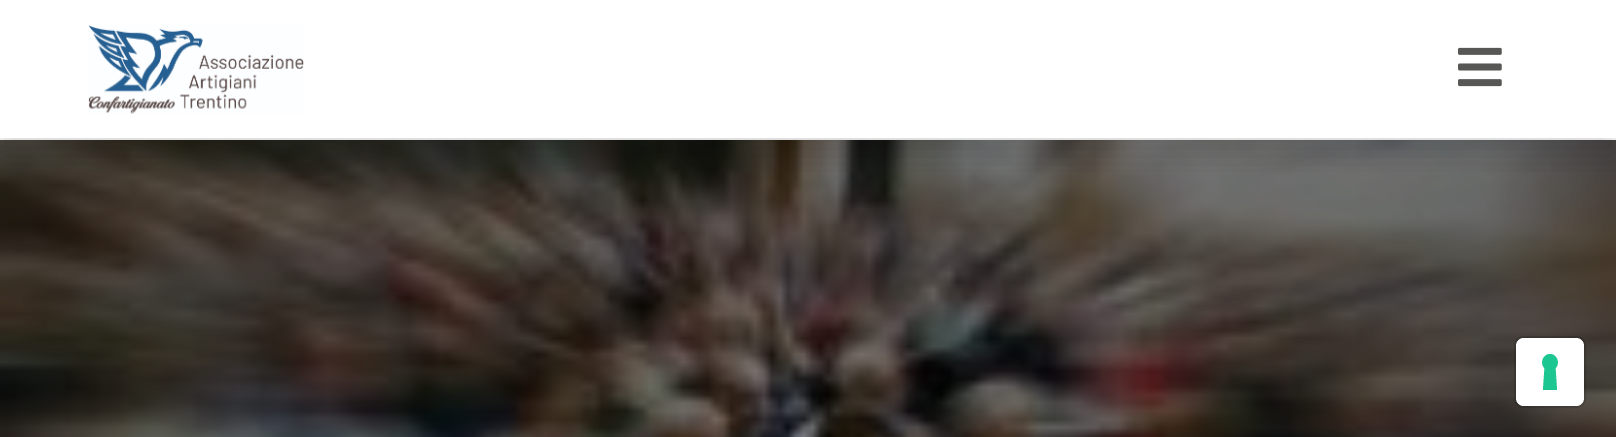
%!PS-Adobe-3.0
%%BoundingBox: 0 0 1616 437
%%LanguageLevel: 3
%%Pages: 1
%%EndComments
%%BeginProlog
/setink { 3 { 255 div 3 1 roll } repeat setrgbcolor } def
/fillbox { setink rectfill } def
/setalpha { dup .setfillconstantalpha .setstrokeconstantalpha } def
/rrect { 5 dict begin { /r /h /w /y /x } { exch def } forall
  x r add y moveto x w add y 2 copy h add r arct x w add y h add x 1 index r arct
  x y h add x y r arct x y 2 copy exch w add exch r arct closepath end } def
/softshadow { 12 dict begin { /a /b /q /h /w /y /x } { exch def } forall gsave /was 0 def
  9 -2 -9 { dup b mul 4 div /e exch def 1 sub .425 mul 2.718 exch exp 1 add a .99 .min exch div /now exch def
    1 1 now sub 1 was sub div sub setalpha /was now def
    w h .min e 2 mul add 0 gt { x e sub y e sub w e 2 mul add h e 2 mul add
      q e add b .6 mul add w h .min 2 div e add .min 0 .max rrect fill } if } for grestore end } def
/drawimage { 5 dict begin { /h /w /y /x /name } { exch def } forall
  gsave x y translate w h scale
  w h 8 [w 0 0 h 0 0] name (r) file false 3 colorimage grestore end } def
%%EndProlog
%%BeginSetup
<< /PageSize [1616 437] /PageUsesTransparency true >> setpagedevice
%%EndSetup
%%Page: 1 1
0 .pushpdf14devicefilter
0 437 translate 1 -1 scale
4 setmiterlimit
0 0 1616 437 255 255 255 fillbox
(assets/img3.rgb) 0 140 1616 297 drawimage
gsave
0 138 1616 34 rectclip
0 0 0 setink
0 16 1616 138 0 16 0.15 softshadow
grestore
(assets/img1.rgb) 88 25 216 89 drawimage
(assets/img2.rgb) 1458 47 44 40 drawimage
0.15 setalpha
0 0 0 setink
2 setlinewidth
1515 337 70 70 9 rrect stroke
1 setalpha
255 255 255 setink
1516 338 68 68 8 rrect fill
28 198 145 setink
1550 354 moveto 1557 354 1560.5 363.5 1555.5 368 curveto 1557 390 lineto 1543 390 lineto 1544.5 368 lineto 1539.5 363.5 1543 354 1550 354 curveto closepath eofill
.poppdf14devicefilter showpage
%%EOF
